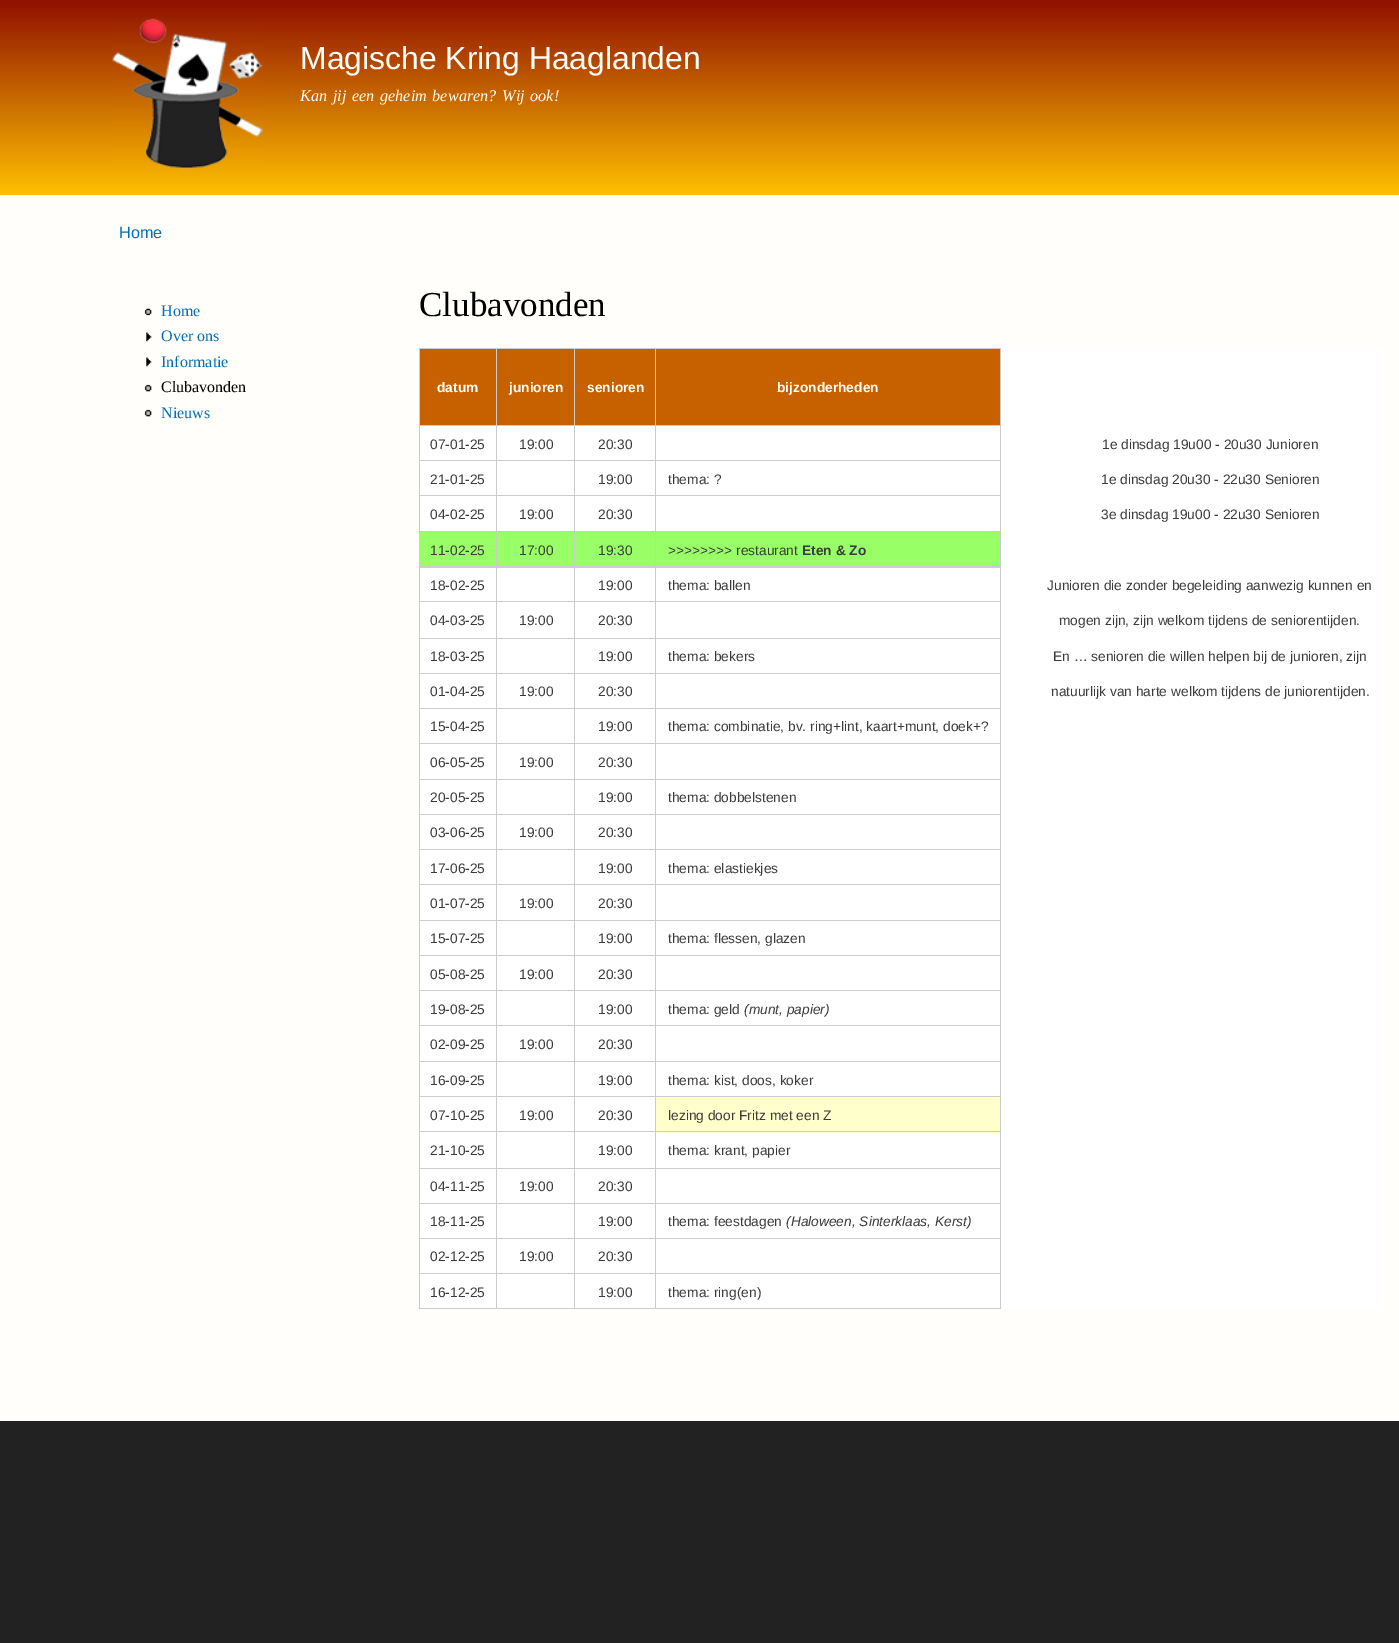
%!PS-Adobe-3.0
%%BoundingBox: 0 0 1399 1643
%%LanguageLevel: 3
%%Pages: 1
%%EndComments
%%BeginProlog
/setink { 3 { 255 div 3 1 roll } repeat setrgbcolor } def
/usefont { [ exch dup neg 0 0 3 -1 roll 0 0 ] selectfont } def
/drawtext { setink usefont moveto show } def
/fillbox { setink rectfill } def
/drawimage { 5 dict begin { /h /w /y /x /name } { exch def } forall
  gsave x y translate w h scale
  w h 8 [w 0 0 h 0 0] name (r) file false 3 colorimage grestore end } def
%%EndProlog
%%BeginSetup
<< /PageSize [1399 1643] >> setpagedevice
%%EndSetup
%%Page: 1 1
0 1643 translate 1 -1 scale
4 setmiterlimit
0 0 1399 1643 34 34 34 fillbox
0 195 1399 1226 255 254 250 fillbox
gsave 0 0 moveto 1399 0 lineto 1399 195 lineto 0 195 lineto closepath clip newpath
<< /ShadingType 2 /ColorSpace /DeviceRGB /Coords [700 0 700 195] /Extend [true true] /Function << /FunctionType 2 /Domain [0 1] /C0 [0.565 0.063 0] /C1 [1 0.753 0] /N 1 >> >> shfill grestore
(assets/img1.rgb) 112 18 151 151 drawimage
(Magische Kring Haaglanden) 300 69 /LiberationSans-Regular 31.9 255 254 250 drawtext
/LiberationSerif-Italic 16.25 usefont
300 101 moveto 1.5 0 32 (Kan jij een geheim bewaren? Wij ook!) widthshow
(Home) 119 238 /LiberationSans-Regular 16.25 0 112 179 drawtext
(assets/img2.rgb) 144 308 8 8 drawimage
(Home) 161 316 /LiberationSerif-Regular 16 0 112 179 drawtext
(assets/img3.rgb) 146 332 6 10 drawimage
(Over ons) 161 341 /LiberationSerif-Regular 16 0 112 179 drawtext
(assets/img3.rgb) 146 357 6 10 drawimage
(Informatie) 161 367 /LiberationSerif-Regular 16 0 112 179 drawtext
(assets/img4.rgb) 144 384 8 8 drawimage
(Clubavonden) 161 392 /LiberationSerif-Regular 16 0 0 0 drawtext
(assets/img4.rgb) 144 409 8 8 drawimage
(Nieuws) 161 418 /LiberationSerif-Regular 16 0 112 179 drawtext
(Clubavonden) 419 316 /LiberationSerif-Regular 35 0 0 0 drawtext
420 349 154 76 199 97 0 fillbox
655 348 346 1 204 204 204 fillbox
1000 425 384 1 255 255 255 fillbox
655 425 346 1 204 204 204 fillbox
655 460 346 1 204 204 204 fillbox
655 495 346 1 204 204 204 fillbox
655 531 346 1 204 204 204 fillbox
575 532 80 36 153 255 102 fillbox
656 532 344 36 153 255 102 fillbox
655 566 346 1 204 204 204 fillbox
575 568 80 70 255 255 255 fillbox
656 568 344 70 255 255 255 fillbox
655 601 346 1 204 204 204 fillbox
655 638 346 1 204 204 204 fillbox
655 673 346 1 204 204 204 fillbox
655 708 346 1 204 204 204 fillbox
655 743 346 1 204 204 204 fillbox
655 779 346 1 204 204 204 fillbox
655 814 346 1 204 204 204 fillbox
655 849 346 1 204 204 204 fillbox
655 884 346 1 204 204 204 fillbox
655 920 346 1 204 204 204 fillbox
655 955 346 1 204 204 204 fillbox
655 990 346 1 204 204 204 fillbox
655 1025 346 1 204 204 204 fillbox
655 1061 346 1 204 204 204 fillbox
655 1096 346 1 204 204 204 fillbox
575 1097 80 71 255 255 255 fillbox
656 1097 344 36 255 255 204 fillbox
655 1131 346 1 204 204 204 fillbox
655 1168 346 1 204 204 204 fillbox
655 1203 346 1 204 204 204 fillbox
655 1238 346 1 204 204 204 fillbox
655 1273 346 1 204 204 204 fillbox
1000 1273 1 36 204 204 204 fillbox
655 1308 346 1 204 204 204 fillbox
655 1273 1 36 204 204 204 fillbox
574 1273 82 1 204 204 204 fillbox
655 1238 1 36 204 204 204 fillbox
574 1238 82 1 204 204 204 fillbox
655 1203 1 36 204 204 204 fillbox
574 1203 82 1 204 204 204 fillbox
655 1168 1 36 204 204 204 fillbox
574 1168 82 1 204 204 204 fillbox
655 1131 1 38 204 204 204 fillbox
574 1131 82 1 204 204 204 fillbox
655 1096 1 37 204 204 204 fillbox
574 1096 82 1 204 204 204 fillbox
655 1061 1 37 204 204 204 fillbox
574 1061 82 1 204 204 204 fillbox
655 1025 1 38 204 204 204 fillbox
574 1025 82 1 204 204 204 fillbox
655 990 1 36 204 204 204 fillbox
574 990 82 1 204 204 204 fillbox
655 955 1 36 204 204 204 fillbox
574 955 82 1 204 204 204 fillbox
655 920 1 36 204 204 204 fillbox
574 920 82 1 204 204 204 fillbox
655 884 1 37 204 204 204 fillbox
574 884 82 1 204 204 204 fillbox
655 849 1 36 204 204 204 fillbox
574 849 82 1 204 204 204 fillbox
655 814 1 36 204 204 204 fillbox
574 814 82 1 204 204 204 fillbox
655 779 1 36 204 204 204 fillbox
574 779 82 1 204 204 204 fillbox
655 743 1 37 204 204 204 fillbox
574 743 82 1 204 204 204 fillbox
655 708 1 36 204 204 204 fillbox
574 708 82 1 204 204 204 fillbox
655 673 1 36 204 204 204 fillbox
574 673 82 1 204 204 204 fillbox
655 638 1 36 204 204 204 fillbox
574 638 82 1 204 204 204 fillbox
655 601 1 38 204 204 204 fillbox
574 601 82 1 204 204 204 fillbox
655 566 1 37 204 204 204 fillbox
574 566 82 1 204 204 204 fillbox
655 531 1 37 204 204 204 fillbox
574 531 82 1 204 204 204 fillbox
655 495 1 38 204 204 204 fillbox
574 495 82 1 204 204 204 fillbox
655 460 1 36 204 204 204 fillbox
574 460 82 1 204 204 204 fillbox
655 425 1 36 204 204 204 fillbox
655 348 1 78 204 204 204 fillbox
574 348 82 1 204 204 204 fillbox
419 425 236 1 204 204 204 fillbox
420 532 154 36 153 255 102 fillbox
420 568 154 35 255 255 255 fillbox
420 1097 154 36 255 255 255 fillbox
574 1308 82 1 204 204 204 fillbox
574 1273 1 36 204 204 204 fillbox
496 1273 79 1 204 204 204 fillbox
574 1238 1 36 204 204 204 fillbox
496 1238 79 1 204 204 204 fillbox
574 1203 1 36 204 204 204 fillbox
496 1203 79 1 204 204 204 fillbox
574 1168 1 36 204 204 204 fillbox
496 1168 79 1 204 204 204 fillbox
574 1131 1 38 204 204 204 fillbox
496 1131 79 1 204 204 204 fillbox
574 1096 1 37 204 204 204 fillbox
496 1096 79 1 204 204 204 fillbox
574 1061 1 37 204 204 204 fillbox
496 1061 79 1 204 204 204 fillbox
574 1025 1 38 204 204 204 fillbox
496 1025 79 1 204 204 204 fillbox
574 990 1 36 204 204 204 fillbox
496 990 79 1 204 204 204 fillbox
574 955 1 36 204 204 204 fillbox
496 955 79 1 204 204 204 fillbox
574 920 1 36 204 204 204 fillbox
496 920 79 1 204 204 204 fillbox
574 884 1 37 204 204 204 fillbox
496 884 79 1 204 204 204 fillbox
574 849 1 36 204 204 204 fillbox
496 849 79 1 204 204 204 fillbox
574 814 1 36 204 204 204 fillbox
496 814 79 1 204 204 204 fillbox
574 779 1 36 204 204 204 fillbox
496 779 79 1 204 204 204 fillbox
574 743 1 37 204 204 204 fillbox
496 743 79 1 204 204 204 fillbox
574 708 1 36 204 204 204 fillbox
496 708 79 1 204 204 204 fillbox
574 673 1 36 204 204 204 fillbox
496 673 79 1 204 204 204 fillbox
574 638 1 36 204 204 204 fillbox
496 638 79 1 204 204 204 fillbox
574 601 1 38 204 204 204 fillbox
496 601 79 1 204 204 204 fillbox
574 566 1 37 204 204 204 fillbox
496 566 79 1 204 204 204 fillbox
574 531 1 37 204 204 204 fillbox
496 531 79 1 204 204 204 fillbox
574 495 1 38 204 204 204 fillbox
496 495 79 1 204 204 204 fillbox
574 460 1 36 204 204 204 fillbox
496 460 79 1 204 204 204 fillbox
574 425 1 36 204 204 204 fillbox
574 348 1 78 204 204 204 fillbox
496 348 79 1 204 204 204 fillbox
420 426 154 34 255 255 255 fillbox
420 461 154 34 255 255 255 fillbox
420 496 154 35 255 255 255 fillbox
420 603 154 35 255 255 255 fillbox
420 639 154 34 255 255 255 fillbox
420 674 154 34 255 255 255 fillbox
420 709 154 34 255 255 255 fillbox
420 744 154 35 255 255 255 fillbox
420 780 154 34 255 255 255 fillbox
420 815 154 34 255 255 255 fillbox
420 850 154 34 255 255 255 fillbox
420 885 154 35 255 255 255 fillbox
420 921 154 34 255 255 255 fillbox
420 956 154 34 255 255 255 fillbox
420 991 154 34 255 255 255 fillbox
420 1026 154 35 255 255 255 fillbox
420 1062 154 34 255 255 255 fillbox
420 1133 154 35 255 255 255 fillbox
420 1169 154 34 255 255 255 fillbox
420 1204 154 34 255 255 255 fillbox
420 1239 154 34 255 255 255 fillbox
420 1274 154 34 255 255 255 fillbox
496 1308 79 1 204 204 204 fillbox
496 1273 1 36 204 204 204 fillbox
419 1273 79 1 204 204 204 fillbox
496 1238 1 36 204 204 204 fillbox
419 1238 79 1 204 204 204 fillbox
496 1203 1 36 204 204 204 fillbox
419 1203 79 1 204 204 204 fillbox
496 1168 1 36 204 204 204 fillbox
419 1168 79 1 204 204 204 fillbox
496 1131 1 38 204 204 204 fillbox
419 1131 79 1 204 204 204 fillbox
496 1096 1 37 204 204 204 fillbox
419 1096 79 1 204 204 204 fillbox
496 1061 1 37 204 204 204 fillbox
419 1061 79 1 204 204 204 fillbox
496 1025 1 38 204 204 204 fillbox
419 1025 79 1 204 204 204 fillbox
496 990 1 36 204 204 204 fillbox
419 990 79 1 204 204 204 fillbox
496 955 1 36 204 204 204 fillbox
419 955 79 1 204 204 204 fillbox
496 920 1 36 204 204 204 fillbox
419 920 79 1 204 204 204 fillbox
496 884 1 37 204 204 204 fillbox
419 884 79 1 204 204 204 fillbox
496 849 1 36 204 204 204 fillbox
419 849 79 1 204 204 204 fillbox
496 814 1 36 204 204 204 fillbox
419 814 79 1 204 204 204 fillbox
496 779 1 36 204 204 204 fillbox
419 779 79 1 204 204 204 fillbox
496 743 1 37 204 204 204 fillbox
419 743 79 1 204 204 204 fillbox
496 708 1 36 204 204 204 fillbox
419 708 79 1 204 204 204 fillbox
496 673 1 36 204 204 204 fillbox
419 673 79 1 204 204 204 fillbox
496 638 1 36 204 204 204 fillbox
419 638 79 1 204 204 204 fillbox
496 601 1 38 204 204 204 fillbox
419 601 79 1 204 204 204 fillbox
496 566 1 37 204 204 204 fillbox
419 566 79 1 204 204 204 fillbox
496 531 1 37 204 204 204 fillbox
419 531 79 1 204 204 204 fillbox
496 495 1 38 204 204 204 fillbox
419 495 79 1 204 204 204 fillbox
496 460 1 36 204 204 204 fillbox
419 460 79 1 204 204 204 fillbox
496 425 1 36 204 204 204 fillbox
496 348 1 78 204 204 204 fillbox
419 348 79 1 204 204 204 fillbox
419 1308 79 1 204 204 204 fillbox
419 1273 1 36 204 204 204 fillbox
419 1238 1 36 204 204 204 fillbox
419 1203 1 36 204 204 204 fillbox
419 1168 1 36 204 204 204 fillbox
419 1131 1 38 204 204 204 fillbox
419 1096 1 37 204 204 204 fillbox
419 1061 1 37 204 204 204 fillbox
419 1025 1 38 204 204 204 fillbox
419 990 1 36 204 204 204 fillbox
419 955 1 36 204 204 204 fillbox
419 920 1 36 204 204 204 fillbox
419 884 1 37 204 204 204 fillbox
419 849 1 36 204 204 204 fillbox
419 814 1 36 204 204 204 fillbox
419 779 1 36 204 204 204 fillbox
419 743 1 37 204 204 204 fillbox
419 708 1 36 204 204 204 fillbox
419 673 1 36 204 204 204 fillbox
419 638 1 36 204 204 204 fillbox
419 601 1 38 204 204 204 fillbox
419 566 1 37 204 204 204 fillbox
419 531 1 37 204 204 204 fillbox
419 495 1 38 204 204 204 fillbox
419 425 1 71 204 204 204 fillbox
419 348 1 78 204 204 204 fillbox
(datum) 437 392 /LiberationSans-Bold 13.75 255 254 250 drawtext
(junioren) 509 392 /LiberationSans-Bold 13.75 255 254 250 drawtext
575 349 80 76 199 97 0 fillbox
(senioren) 587 392 /LiberationSans-Bold 13.75 255 254 250 drawtext
656 349 344 76 199 97 0 fillbox
1035 426 349 70 255 255 255 fillbox
1035 531 349 213 255 255 255 fillbox
1035 779 349 106 255 255 255 fillbox
1035 920 349 106 255 255 255 fillbox
1035 1061 349 213 255 255 255 fillbox
1000 1273 36 1 255 255 255 fillbox
1000 1238 1 36 204 204 204 fillbox
1000 1238 36 1 255 255 255 fillbox
1000 1203 1 36 204 204 204 fillbox
1000 1203 36 1 255 255 255 fillbox
1000 1168 1 36 204 204 204 fillbox
1000 1168 36 1 255 255 255 fillbox
1000 1131 1 38 204 204 204 fillbox
1000 1131 1 1 255 255 255 fillbox
1000 1096 1 37 204 204 204 fillbox
1000 1096 36 1 255 255 255 fillbox
1000 1061 1 37 204 204 204 fillbox
1000 1061 36 1 255 255 255 fillbox
1000 1025 1 38 204 204 204 fillbox
1000 1025 36 1 255 255 255 fillbox
1000 990 1 36 204 204 204 fillbox
1000 990 36 1 255 255 255 fillbox
1000 955 1 36 204 204 204 fillbox
1000 955 36 1 255 255 255 fillbox
1000 920 1 36 204 204 204 fillbox
1000 920 36 1 255 255 255 fillbox
1000 884 1 37 204 204 204 fillbox
1000 884 36 1 255 255 255 fillbox
1000 849 1 36 204 204 204 fillbox
1000 849 36 1 255 255 255 fillbox
1000 814 1 36 204 204 204 fillbox
1000 814 36 1 255 255 255 fillbox
1000 779 1 36 204 204 204 fillbox
1000 779 36 1 255 255 255 fillbox
1000 743 1 37 204 204 204 fillbox
1000 743 36 1 255 255 255 fillbox
1000 708 1 36 204 204 204 fillbox
1000 708 36 1 255 255 255 fillbox
1000 673 1 36 204 204 204 fillbox
1000 673 36 1 255 255 255 fillbox
1000 638 1 36 204 204 204 fillbox
1000 638 36 1 255 255 255 fillbox
1000 601 1 38 204 204 204 fillbox
1000 601 1 1 255 255 255 fillbox
1000 566 1 37 204 204 204 fillbox
1000 566 1 1 255 255 255 fillbox
1000 531 1 37 204 204 204 fillbox
1000 531 36 1 255 255 255 fillbox
1000 495 1 38 204 204 204 fillbox
1000 495 36 1 255 255 255 fillbox
1000 460 1 36 204 204 204 fillbox
1000 460 36 1 255 255 255 fillbox
1000 425 1 36 204 204 204 fillbox
1000 348 1 78 204 204 204 fillbox
(bijzonderheden) 777 392 /LiberationSans-Bold 13.75 255 254 250 drawtext
1001 348 383 77 255 255 255 fillbox
(07-01-25) 430 449 /LiberationSans-Regular 13.75 59 59 59 drawtext
(19:00) 519 449 /LiberationSans-Regular 13.75 59 59 59 drawtext
575 426 80 34 255 255 255 fillbox
(20:30) 598 449 /LiberationSans-Regular 13.75 59 59 59 drawtext
656 426 344 34 255 255 255 fillbox
1001 426 34 34 255 255 255 fillbox
(1e dinsdag 19u00 - 20u30 Junioren) 1102 449 /LiberationSans-Regular 13.75 59 59 59 drawtext
(21-01-25) 430 484 /LiberationSans-Regular 13.75 59 59 59 drawtext
575 461 80 34 255 255 255 fillbox
(19:00) 598 484 /LiberationSans-Regular 13.75 59 59 59 drawtext
656 461 344 34 255 255 255 fillbox
(thema: ?) 668 484 /LiberationSans-Regular 13.75 59 59 59 drawtext
1001 461 34 34 255 255 255 fillbox
(1e dinsdag 20u30 - 22u30 Senioren) 1101 484 /LiberationSans-Regular 13.75 59 59 59 drawtext
(04-02-25) 430 519 /LiberationSans-Regular 13.75 59 59 59 drawtext
(19:00) 519 519 /LiberationSans-Regular 13.75 59 59 59 drawtext
575 496 80 35 255 255 255 fillbox
(20:30) 598 519 /LiberationSans-Regular 13.75 59 59 59 drawtext
656 496 344 35 255 255 255 fillbox
1001 496 383 35 255 255 255 fillbox
(3e dinsdag 19u00 - 22u30 Senioren) 1101 519 /LiberationSans-Regular 13.75 59 59 59 drawtext
(11-02-25) 430 555 /LiberationSans-Regular 13.75 59 59 59 drawtext
(17:00) 519 555 /LiberationSans-Regular 13.75 59 59 59 drawtext
(19:30) 598 555 /LiberationSans-Regular 13.75 59 59 59 drawtext
(>>>>>>>> restaurant) 668 555 /LiberationSans-Regular 13.75 59 59 59 drawtext
(Eten & Zo) 802 555 /LiberationSans-Bold 13.75 59 59 59 drawtext
1001 532 34 106 255 255 255 fillbox
(18-02-25) 430 590 /LiberationSans-Regular 13.75 59 59 59 drawtext
(19:00) 598 590 /LiberationSans-Regular 13.75 59 59 59 drawtext
(thema: ballen) 668 590 /LiberationSans-Regular 13.75 59 59 59 drawtext
(Junioren die zonder begeleiding aanwezig kunnen en) 1047 590 /LiberationSans-Regular 13.75 59 59 59 drawtext
(04-03-25) 430 625 /LiberationSans-Regular 13.75 59 59 59 drawtext
(19:00) 519 625 /LiberationSans-Regular 13.75 59 59 59 drawtext
(20:30) 598 625 /LiberationSans-Regular 13.75 59 59 59 drawtext
(mogen zijn, zijn welkom tijdens de seniorentijden.) 1059 625 /LiberationSans-Regular 13.75 59 59 59 drawtext
(18-03-25) 430 661 /LiberationSans-Regular 13.75 59 59 59 drawtext
575 639 80 34 255 255 255 fillbox
(19:00) 598 661 /LiberationSans-Regular 13.75 59 59 59 drawtext
656 639 344 34 255 255 255 fillbox
(thema: bekers) 668 661 /LiberationSans-Regular 13.75 59 59 59 drawtext
1001 639 34 34 255 255 255 fillbox
(En … senioren die willen helpen bij de junioren, zijn) 1053 661 /LiberationSans-Regular 13.75 59 59 59 drawtext
(01-04-25) 430 696 /LiberationSans-Regular 13.75 59 59 59 drawtext
(19:00) 519 696 /LiberationSans-Regular 13.75 59 59 59 drawtext
575 674 80 34 255 255 255 fillbox
(20:30) 598 696 /LiberationSans-Regular 13.75 59 59 59 drawtext
656 674 344 34 255 255 255 fillbox
1001 674 34 34 255 255 255 fillbox
(natuurlijk van harte welkom tijdens de juniorentijden.) 1051 696 /LiberationSans-Regular 13.75 59 59 59 drawtext
(15-04-25) 430 731 /LiberationSans-Regular 13.75 59 59 59 drawtext
575 709 80 34 255 255 255 fillbox
(19:00) 598 731 /LiberationSans-Regular 13.75 59 59 59 drawtext
656 709 344 34 255 255 255 fillbox
(thema: combinatie, bv. ring+lint, kaart+munt, doek+?) 668 731 /LiberationSans-Regular 13.75 59 59 59 drawtext
1001 709 34 34 255 255 255 fillbox
(06-05-25) 430 767 /LiberationSans-Regular 13.75 59 59 59 drawtext
(19:00) 519 767 /LiberationSans-Regular 13.75 59 59 59 drawtext
575 744 80 35 255 255 255 fillbox
(20:30) 598 767 /LiberationSans-Regular 13.75 59 59 59 drawtext
656 744 344 35 255 255 255 fillbox
1001 744 383 35 255 255 255 fillbox
(20-05-25) 430 802 /LiberationSans-Regular 13.75 59 59 59 drawtext
575 780 80 34 255 255 255 fillbox
(19:00) 598 802 /LiberationSans-Regular 13.75 59 59 59 drawtext
656 780 344 34 255 255 255 fillbox
(thema: dobbelstenen) 668 802 /LiberationSans-Regular 13.75 59 59 59 drawtext
1001 780 34 34 255 255 255 fillbox
(03-06-25) 430 837 /LiberationSans-Regular 13.75 59 59 59 drawtext
(19:00) 519 837 /LiberationSans-Regular 13.75 59 59 59 drawtext
575 815 80 34 255 255 255 fillbox
(20:30) 598 837 /LiberationSans-Regular 13.75 59 59 59 drawtext
656 815 344 34 255 255 255 fillbox
1001 815 34 34 255 255 255 fillbox
(17-06-25) 430 873 /LiberationSans-Regular 13.75 59 59 59 drawtext
575 850 80 34 255 255 255 fillbox
(19:00) 598 873 /LiberationSans-Regular 13.75 59 59 59 drawtext
656 850 344 34 255 255 255 fillbox
(thema: elastiekjes) 668 873 /LiberationSans-Regular 13.75 59 59 59 drawtext
1001 850 34 34 255 255 255 fillbox
(01-07-25) 430 908 /LiberationSans-Regular 13.75 59 59 59 drawtext
(19:00) 519 908 /LiberationSans-Regular 13.75 59 59 59 drawtext
575 885 80 35 255 255 255 fillbox
(20:30) 598 908 /LiberationSans-Regular 13.75 59 59 59 drawtext
656 885 344 35 255 255 255 fillbox
1001 885 383 35 255 255 255 fillbox
(15-07-25) 430 943 /LiberationSans-Regular 13.75 59 59 59 drawtext
575 921 80 34 255 255 255 fillbox
(19:00) 598 943 /LiberationSans-Regular 13.75 59 59 59 drawtext
656 921 344 34 255 255 255 fillbox
(thema: flessen, glazen) 668 943 /LiberationSans-Regular 13.75 59 59 59 drawtext
1001 921 34 34 255 255 255 fillbox
(05-08-25) 430 979 /LiberationSans-Regular 13.75 59 59 59 drawtext
(19:00) 519 979 /LiberationSans-Regular 13.75 59 59 59 drawtext
575 956 80 34 255 255 255 fillbox
(20:30) 598 979 /LiberationSans-Regular 13.75 59 59 59 drawtext
656 956 344 34 255 255 255 fillbox
1001 956 34 34 255 255 255 fillbox
(19-08-25) 430 1014 /LiberationSans-Regular 13.75 59 59 59 drawtext
575 991 80 34 255 255 255 fillbox
(19:00) 598 1014 /LiberationSans-Regular 13.75 59 59 59 drawtext
656 991 344 34 255 255 255 fillbox
(thema: geld) 668 1014 /LiberationSans-Regular 13.75 59 59 59 drawtext
(\(munt, papier\)) 744 1014 /LiberationSans-Italic 13.75 59 59 59 drawtext
1001 991 34 34 255 255 255 fillbox
(02-09-25) 430 1049 /LiberationSans-Regular 13.75 59 59 59 drawtext
(19:00) 519 1049 /LiberationSans-Regular 13.75 59 59 59 drawtext
575 1026 80 35 255 255 255 fillbox
(20:30) 598 1049 /LiberationSans-Regular 13.75 59 59 59 drawtext
656 1026 344 35 255 255 255 fillbox
1001 1026 383 35 255 255 255 fillbox
(16-09-25) 430 1085 /LiberationSans-Regular 13.75 59 59 59 drawtext
575 1062 80 34 255 255 255 fillbox
(19:00) 598 1085 /LiberationSans-Regular 13.75 59 59 59 drawtext
656 1062 344 34 255 255 255 fillbox
(thema: kist, doos, koker) 668 1085 /LiberationSans-Regular 13.75 59 59 59 drawtext
1001 1062 34 34 255 255 255 fillbox
(07-10-25) 430 1120 /LiberationSans-Regular 13.75 59 59 59 drawtext
(19:00) 519 1120 /LiberationSans-Regular 13.75 59 59 59 drawtext
(20:30) 598 1120 /LiberationSans-Regular 13.75 59 59 59 drawtext
(lezing door Fritz met een Z) 668 1120 /LiberationSans-Regular 13.75 59 59 59 drawtext
1001 1097 34 71 255 255 255 fillbox
(21-10-25) 430 1155 /LiberationSans-Regular 13.75 59 59 59 drawtext
(19:00) 598 1155 /LiberationSans-Regular 13.75 59 59 59 drawtext
656 1133 344 35 255 255 255 fillbox
(thema: krant, papier) 668 1155 /LiberationSans-Regular 13.75 59 59 59 drawtext
(04-11-25) 430 1191 /LiberationSans-Regular 13.75 59 59 59 drawtext
(19:00) 519 1191 /LiberationSans-Regular 13.75 59 59 59 drawtext
575 1169 80 34 255 255 255 fillbox
(20:30) 598 1191 /LiberationSans-Regular 13.75 59 59 59 drawtext
656 1169 344 34 255 255 255 fillbox
1001 1169 34 34 255 255 255 fillbox
(18-11-25) 430 1226 /LiberationSans-Regular 13.75 59 59 59 drawtext
575 1204 80 34 255 255 255 fillbox
(19:00) 598 1226 /LiberationSans-Regular 13.75 59 59 59 drawtext
656 1204 344 34 255 255 255 fillbox
(thema: feestdagen) 668 1226 /LiberationSans-Regular 13.75 59 59 59 drawtext
(\(Haloween, Sinterklaas, Kerst\)) 786 1226 /LiberationSans-Italic 13.75 59 59 59 drawtext
1001 1204 34 34 255 255 255 fillbox
(02-12-25) 430 1261 /LiberationSans-Regular 13.75 59 59 59 drawtext
(19:00) 519 1261 /LiberationSans-Regular 13.75 59 59 59 drawtext
575 1239 80 34 255 255 255 fillbox
(20:30) 598 1261 /LiberationSans-Regular 13.75 59 59 59 drawtext
656 1239 344 34 255 255 255 fillbox
1001 1239 34 34 255 255 255 fillbox
(16-12-25) 430 1297 /LiberationSans-Regular 13.75 59 59 59 drawtext
575 1274 80 34 255 255 255 fillbox
(19:00) 598 1297 /LiberationSans-Regular 13.75 59 59 59 drawtext
656 1274 344 34 255 255 255 fillbox
(thema: ring\(en\)) 668 1297 /LiberationSans-Regular 13.75 59 59 59 drawtext
1001 1274 383 35 255 255 255 fillbox
showpage
%%EOF
